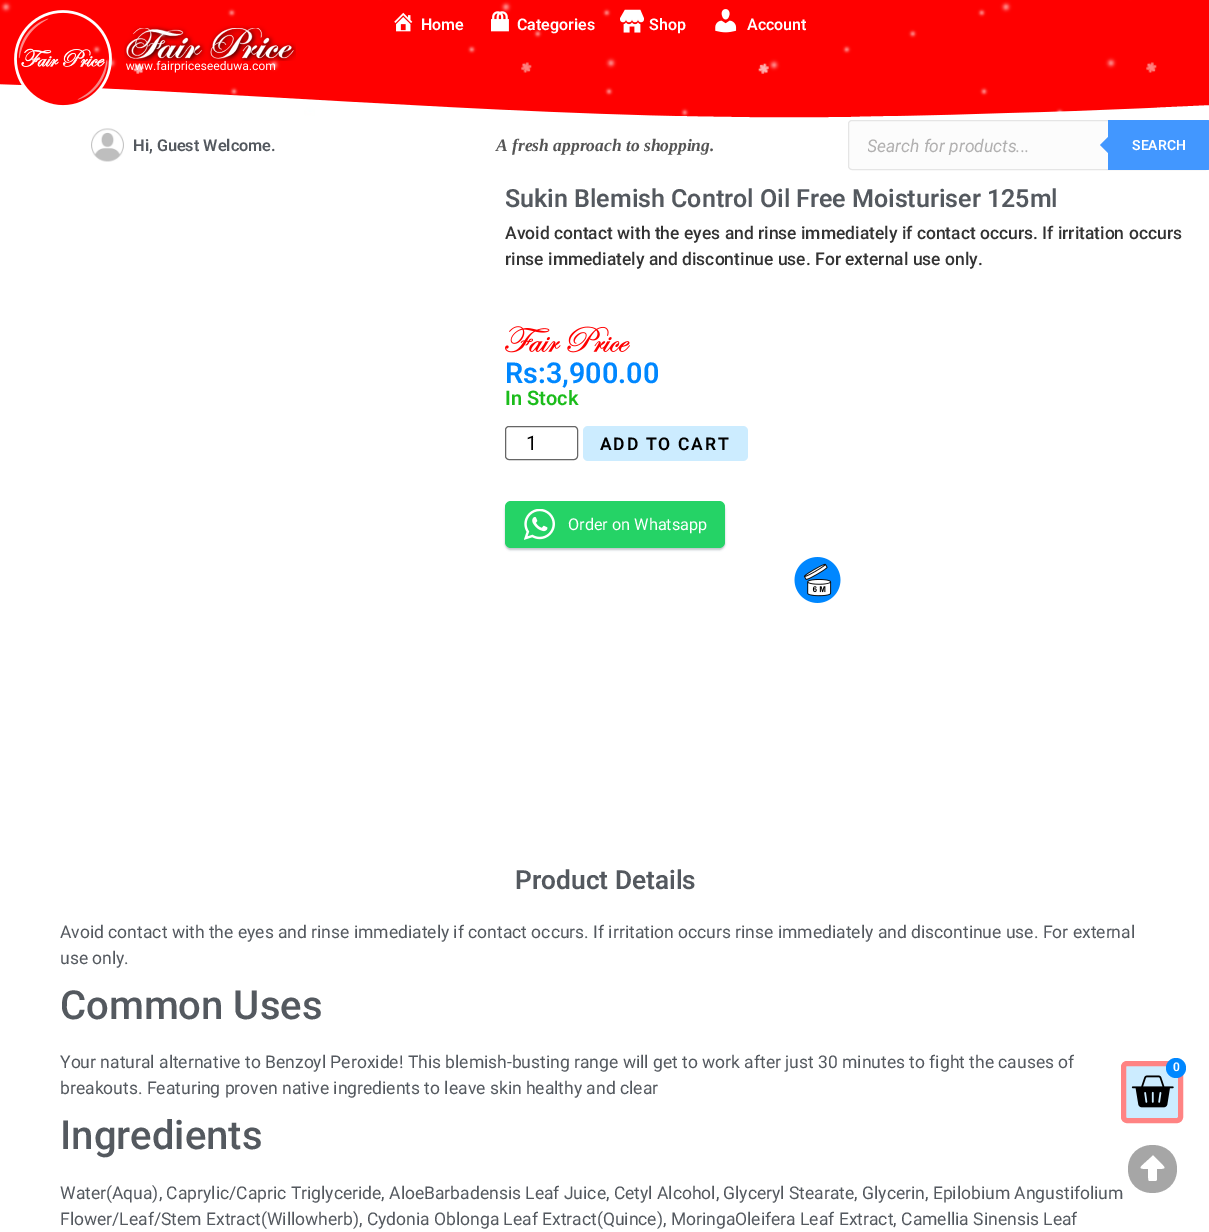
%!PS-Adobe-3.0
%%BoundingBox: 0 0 1209 1232
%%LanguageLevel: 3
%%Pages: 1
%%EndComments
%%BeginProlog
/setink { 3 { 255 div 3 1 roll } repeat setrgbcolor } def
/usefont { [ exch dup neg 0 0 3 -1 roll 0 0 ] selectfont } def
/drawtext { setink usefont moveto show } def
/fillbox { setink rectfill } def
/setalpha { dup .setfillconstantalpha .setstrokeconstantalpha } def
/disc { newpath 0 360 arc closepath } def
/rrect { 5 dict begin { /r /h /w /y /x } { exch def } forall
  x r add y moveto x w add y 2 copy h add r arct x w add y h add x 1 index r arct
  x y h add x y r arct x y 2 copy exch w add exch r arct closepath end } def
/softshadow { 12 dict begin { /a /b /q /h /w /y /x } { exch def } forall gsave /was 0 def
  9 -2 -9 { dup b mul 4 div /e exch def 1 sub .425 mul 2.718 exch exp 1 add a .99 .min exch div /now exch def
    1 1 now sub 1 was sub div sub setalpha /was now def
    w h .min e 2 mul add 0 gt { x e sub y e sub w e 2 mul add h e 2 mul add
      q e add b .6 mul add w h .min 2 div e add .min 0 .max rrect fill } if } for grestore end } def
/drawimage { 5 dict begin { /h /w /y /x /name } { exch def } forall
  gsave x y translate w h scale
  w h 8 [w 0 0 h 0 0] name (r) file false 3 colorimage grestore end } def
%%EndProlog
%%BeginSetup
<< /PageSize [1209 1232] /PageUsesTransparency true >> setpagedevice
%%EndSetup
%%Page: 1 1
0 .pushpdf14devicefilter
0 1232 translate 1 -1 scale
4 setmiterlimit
0 0 1209 1232 255 255 255 fillbox
0 0 1209 118 255 0 0 fillbox
255 255 255 setink
851 117 moveto 583 121 316 97 49 86 curveto -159 78 -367 75 -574 77 curveto -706 79 -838 82 -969 89 curveto -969 119 lineto 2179 119 lineto 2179 106 lineto 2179 106 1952 92 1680 93 curveto 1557 93 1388 96 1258 103 curveto 1192 106 1094 111 1008 113 curveto 922 116 883 116 851 117 curveto closepath fill
(assets/img6.rgb) 14 10 98 96 drawimage
(assets/img7.rgb) 124 25 172 36 drawimage
(www.fairpriceseeduwa.com) 126 70 /Roboto-Regular 12.1 255 255 255 drawtext
(assets/img1.rgb) 0 0 1157 116 drawimage
(assets/img2.rgb) 394 12 19 20 drawimage
(Home) 421 30 /Roboto-SemiBold 16 255 255 255 drawtext
(assets/img3.rgb) 491 11 18 21 drawimage
(Categories) 517 30 /Roboto-SemiBold 16 255 255 255 drawtext
(assets/img4.rgb) 620 9 24 24 drawimage
(Shop) 649 30 /Roboto-SemiBold 16 255 255 255 drawtext
(assets/img5.rgb) 715 9 22 24 drawimage
(Account) 747 30 /Roboto-SemiBold 16 255 255 255 drawtext
(assets/img8.rgb) 91 128 33 34 drawimage
(Hi, Guest Welcome.) 133 151 /Roboto-SemiBold 16.25 84 89 95 drawtext
(A fresh approach to shopping.) 496 151 /LiberationSerif-BoldItalic 17.5 85 85 85 drawtext
252 252 252 setink
848.5 120.5 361 49 3.5 rrect gsave fill grestore
229 229 229 setink
stroke
gsave
868 135 322 20 rectclip
(Search for products...) 867 152 /Roboto-Italic 17.5 177 176 176 drawtext
grestore
66 151 255 setink
1108 120 moveto 1207.5 120 lineto 1209 120 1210 121 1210 122.5 curveto 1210 167.5 lineto 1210 169 1209 170 1207.5 170 curveto 1108 170 lineto closepath fill
1110 135 moveto 1110 155 lineto 1100 145 lineto closepath fill
(SEARCH) 1132 150 /Roboto-SemiBold 14 255 255 255 drawtext
166 166 166 setink
1128 1169 moveto 1128 1137 1177 1137 1177 1169 curveto 1177 1201 1128 1201 1128 1169 curveto closepath 1157 1180 moveto 1157 1169 lineto 1161 1169 1168 1170 1163 1165 curveto 1153 1155 lineto 1142 1165 lineto 1137 1170 1144 1169 1148 1169 curveto 1148 1178 lineto 1148 1182 1149 1181 1152 1181 curveto 1153 1181 1157 1182 1157 1180 curveto closepath fill
(Sukin Blemish Control Oil Free Moisturiser 125ml) 505 207 /Roboto-SemiBold 25 84 89 95 drawtext
(Avoid contact with the eyes and rinse immediately if contact occurs. If irritation occurs) 505 239 /Roboto-Medium 17.5 51 51 51 drawtext
(rinse immediately and discontinue use. For external use only.) 505 265 /Roboto-Medium 17.5 51 51 51 drawtext
(assets/img9.rgb) 505 326 125 27 drawimage
(Rs:3,900.00) 505 383 /Roboto-SemiBold 28.75 0 135 255 drawtext
(In Stock) 505 405 /Roboto-SemiBold 20 27 188 27 drawtext
102 102 102 setink
505.5 426.5 72 33 3.5 rrect stroke
(1) 526 450 /Roboto-Regular 20 0 0 0 drawtext
204 236 255 setink
583 426 165 35 5 rrect fill
/Roboto-SemiBold 17.5 usefont
0 0 0 setink
600 450 moveto 1.75 0 (ADD TO CART) ashow
45 62 79 setink
505 504 220 46 6 1 0.3 softshadow
37 211 102 setink
505 501 220 47 6 rrect fill
(assets/img10.rgb) 524 509 31 31 drawimage
(Order on Whatsapp) 568 530 /Roboto-Regular 16.25 255 255 255 drawtext
(assets/img11.rgb) 794 557 47 46 drawimage
(Product Details) 515 889 /Roboto-SemiBold 26.25 84 89 95 drawtext
(Avoid contact with the eyes and rinse immediately if contact occurs. If irritation occurs rinse immediately and discontinue use. For external) 60 938 /Roboto-Regular 17.5 84 89 95 drawtext
(use only.) 60 964 /Roboto-Regular 17.5 84 89 95 drawtext
(Common Uses) 60 1019 /Roboto-Medium 40 84 89 95 drawtext
(Your natural alternative to Benzoyl Peroxide! This blemish-busting range will get to work after just 30 minutes to fight the causes of) 60 1068 /Roboto-Regular 17.5 84 89 95 drawtext
(breakouts. Featuring proven native ingredients to leave skin healthy and clear) 60 1094 /Roboto-Regular 17.5 84 89 95 drawtext
(Ingredients) 60 1149 /Roboto-Medium 40 84 89 95 drawtext
(Water\(Aqua\), Caprylic/Capric Triglyceride, AloeBarbadensis Leaf Juice, Cetyl Alcohol, Glyceryl Stearate, Glycerin, Epilobium Angustifolium) 60 1199 /Roboto-Regular 17.5 84 89 95 drawtext
(Flower/Leaf/Stem Extract\(Willowherb\), Cydonia Oblonga Leaf Extract\(Quince\), MoringaOleifera Leaf Extract, Camellia Sinensis Leaf) 60 1225 /Roboto-Regular 17.5 84 89 95 drawtext
204 236 255 setink
1123.5 1063.5 57 57 3.5 rrect gsave fill grestore
255 131 131 setink
5 setlinewidth
stroke
(assets/img12.rgb) 1131 1075 43 33 drawimage
0 135 255 setink
1176 1068 10 disc fill
(0) 1173 1071 /Roboto-SemiBold 12 255 255 255 drawtext
.poppdf14devicefilter showpage
%%EOF
